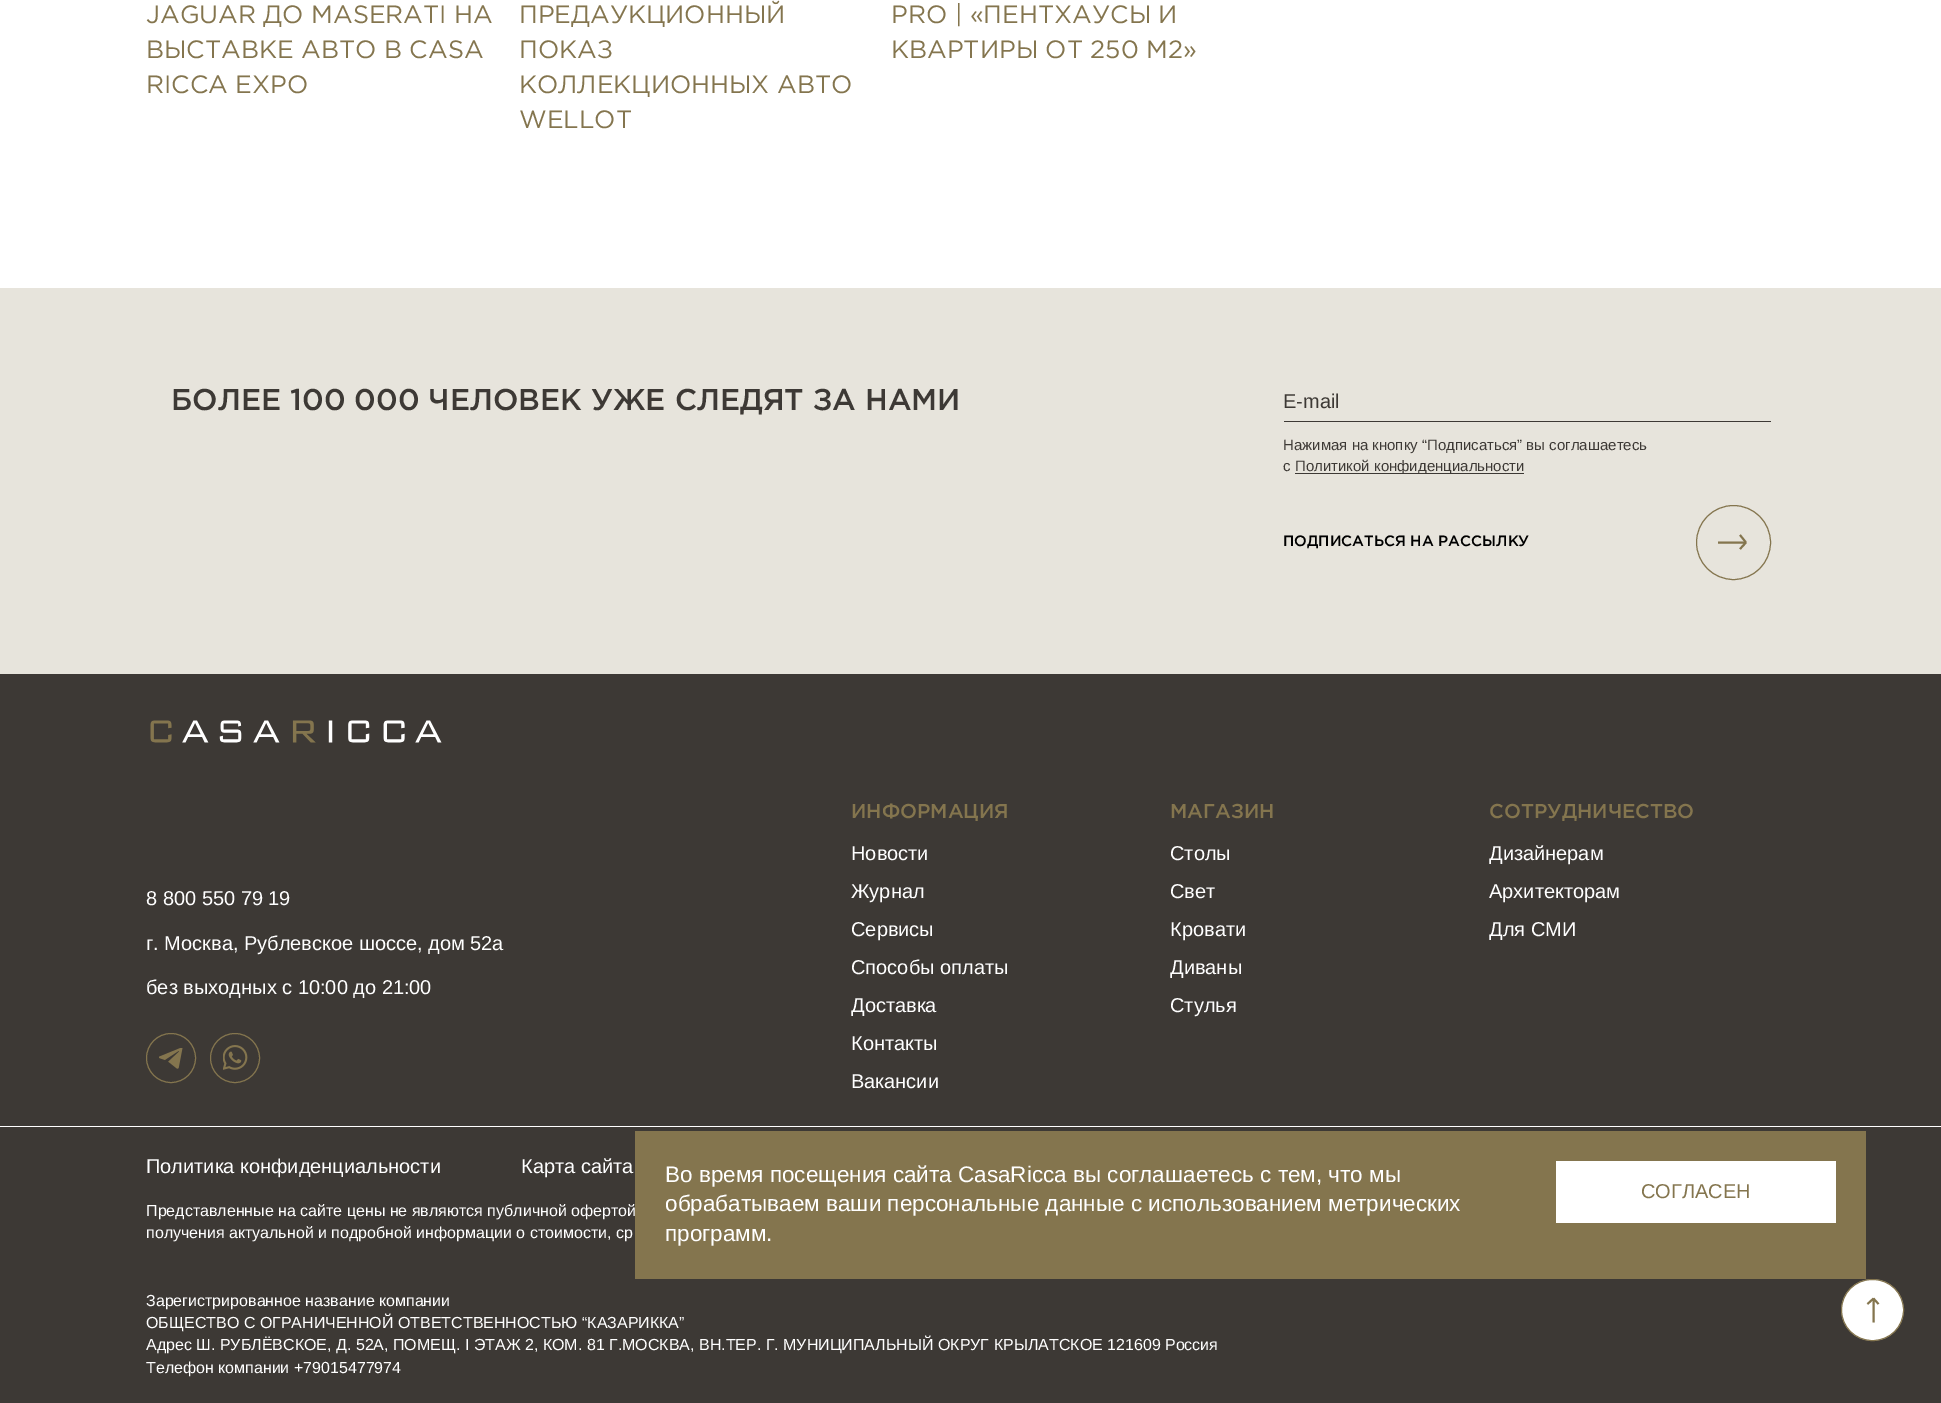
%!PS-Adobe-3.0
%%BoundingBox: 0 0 1941 1403
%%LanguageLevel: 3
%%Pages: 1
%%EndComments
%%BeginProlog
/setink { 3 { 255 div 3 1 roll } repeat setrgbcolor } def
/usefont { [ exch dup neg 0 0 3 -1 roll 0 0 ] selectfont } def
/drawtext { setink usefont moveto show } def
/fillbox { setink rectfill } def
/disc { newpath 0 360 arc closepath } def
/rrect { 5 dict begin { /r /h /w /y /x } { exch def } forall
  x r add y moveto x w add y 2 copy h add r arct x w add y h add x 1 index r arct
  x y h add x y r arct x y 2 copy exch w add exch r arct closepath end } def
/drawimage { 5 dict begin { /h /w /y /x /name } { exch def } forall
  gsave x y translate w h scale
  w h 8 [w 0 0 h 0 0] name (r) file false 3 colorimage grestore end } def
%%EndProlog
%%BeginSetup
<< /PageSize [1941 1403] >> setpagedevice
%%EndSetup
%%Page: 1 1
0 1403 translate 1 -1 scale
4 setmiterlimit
0 0 1941 1403 255 255 255 fillbox
(JAGUAR ДО MASERATI НА) 146 23 /Gotham-Regular 25 132 117 78 drawtext
(ВЫСТАВКЕ АВТО В CASA) 146 58 /Gotham-Regular 25 132 117 78 drawtext
(RICCA EXPO) 146 93 /Gotham-Regular 25 132 117 78 drawtext
(ПРЕДАУКЦИОННЫЙ) 519 23 /Gotham-Regular 25 132 117 78 drawtext
(ПОКАЗ) 519 58 /Gotham-Regular 25 132 117 78 drawtext
(КОЛЛЕКЦИОННЫХ АВТО) 519 93 /Gotham-Regular 25 132 117 78 drawtext
(WELLOT) 519 128 /Gotham-Regular 25 132 117 78 drawtext
(PRO | «ПЕНТХАУСЫ И) 891 23 /Gotham-Regular 25 132 117 78 drawtext
(КВАРТИРЫ ОТ 250 М2») 891 58 /Gotham-Regular 25 132 117 78 drawtext
0 288 1941 386 231 228 220 fillbox
(БОЛЕЕ 100 000 ЧЕЛОВЕК УЖЕ СЛЕДЯТ ЗА НАМИ) 171 410 /Gotham-Medium 30 61 57 53 drawtext
1284 421 487 1 61 57 53 fillbox
(E-mail) 1283 408 /LiberationSans-Regular 20 61 57 53 drawtext
(Нажимая на кнопку “Подписаться” вы соглашаетесь) 1283 450 /LiberationSans-Regular 15 61 57 53 drawtext
(с) 1283 471 /LiberationSans-Regular 15 61 57 53 drawtext
1295 473 229 1 61 57 53 fillbox
(Политикой конфиденциальности) 1295 471 /LiberationSans-Regular 15 61 57 53 drawtext
(ПОДПИСАТЬСЯ НА РАССЫЛКУ) 1283 546 /Gotham-Medium 15 0 0 0 drawtext
132 117 78 setink
1733.5 542.5 37 disc stroke
gsave
1718 534 31 16 rectclip
1.9 setlinewidth
1740 535 moveto 1746 542.5 lineto 1746 542.5 moveto 1740 549 lineto 1746 542.5 moveto 1717.5 542.5 lineto stroke
grestore
0 674 1941 729 61 57 53 fillbox
(assets/img1.rgb) 150 720 292 23 drawimage
(8 800 550 79 19) 146 905 /LiberationSans-Regular 20 255 255 255 drawtext
(г. Москва, Рублевское шоссе, дом 52а) 146 950 /LiberationSans-Regular 20 255 255 255 drawtext
(без выходных с 10:00 до 21:00) 146 994 /LiberationSans-Regular 20 255 255 255 drawtext
132 117 78 setink
171 1058 24.5 disc stroke
(assets/img2.rgb) 159 1048 24 21 drawimage
235 1058 24.5 disc stroke
(assets/img3.rgb) 223 1045 25 25 drawimage
(ИНФОРМАЦИЯ) 851 818 /Gotham-Medium 20 132 117 78 drawtext
(Новости) 851 860 /LiberationSans-Regular 20 255 255 255 drawtext
(Журнал) 851 898 /LiberationSans-Regular 20 255 255 255 drawtext
(Сервисы) 851 936 /LiberationSans-Regular 20 255 255 255 drawtext
(Способы оплаты) 851 974 /LiberationSans-Regular 20 255 255 255 drawtext
(Доставка) 851 1012 /LiberationSans-Regular 20 255 255 255 drawtext
(Контакты) 851 1050 /LiberationSans-Regular 20 255 255 255 drawtext
(Вакансии) 851 1088 /LiberationSans-Regular 20 255 255 255 drawtext
(МАГАЗИН) 1170 818 /Gotham-Medium 20 132 117 78 drawtext
(Столы) 1170 860 /LiberationSans-Regular 20 255 255 255 drawtext
(Свет) 1170 898 /LiberationSans-Regular 20 255 255 255 drawtext
(Кровати) 1170 936 /LiberationSans-Regular 20 255 255 255 drawtext
(Диваны) 1170 974 /LiberationSans-Regular 20 255 255 255 drawtext
(Стулья) 1170 1012 /LiberationSans-Regular 20 255 255 255 drawtext
(СОТРУДНИЧЕСТВО) 1489 818 /Gotham-Medium 20 132 117 78 drawtext
(Дизайнерам) 1489 860 /LiberationSans-Regular 20 255 255 255 drawtext
(Архитекторам) 1489 898 /LiberationSans-Regular 20 255 255 255 drawtext
(Для СМИ) 1489 936 /LiberationSans-Regular 20 255 255 255 drawtext
0 1126 1941 1 255 255 255 fillbox
(Политика конфиденциальности) 146 1173 /LiberationSans-Regular 20 255 255 255 drawtext
(Карта сайта) 521 1173 /LiberationSans-Regular 20 255 255 255 drawtext
(Представленные на сайте цены не являются публичной офертой) 146 1216 /LiberationSans-Regular 16 255 255 255 drawtext
(получения актуальной и подробной информации о стоимости, ср) 146 1238 /LiberationSans-Regular 16 255 255 255 drawtext
(Зарегистрированное название компании) 146 1306 /LiberationSans-Regular 16 255 255 255 drawtext
(ОБЩЕСТВО С ОГРАНИЧЕННОЙ ОТВЕТСТВЕННОСТЬЮ “КАЗАРИККА”) 146 1328 /LiberationSans-Regular 16 255 255 255 drawtext
(Адрес Ш. РУБЛЁВСКОЕ, Д. 52А, ПОМЕЩ. I ЭТАЖ 2, КОМ. 81 Г.МОСКВА, ВН.ТЕР. Г. МУНИЦИПАЛЬНЫЙ ОКРУГ КРЫЛАТСКОЕ 121609 Россия) 146 1350 /LiberationSans-Regular 16 255 255 255 drawtext
(Телефон компании +79015477974) 146 1373 /LiberationSans-Regular 16 255 255 255 drawtext
1841.5 1279.5 62 61 30.5 rrect gsave fill grestore
132 117 78 setink
stroke
1.9 setlinewidth
1867.5 1304 moveto 1873.5 1298.5 lineto 1873.5 1298.5 moveto 1878.5 1304 lineto 1873.5 1298.5 moveto 1873.5 1322.5 lineto stroke
635 1131 1231 148 132 117 78 fillbox
(Во время посещения сайта CasaRicca вы соглашаетесь с тем, что мы) 665 1182 /LiberationSans-Regular 22.5 255 255 255 drawtext
(обрабатываем ваши персональные данные с использованием метрических) 665 1211 /LiberationSans-Regular 22.5 255 255 255 drawtext
(программ.) 665 1241 /LiberationSans-Regular 22.5 255 255 255 drawtext
1556 1161 280 62 255 255 255 fillbox
(СОГЛАСЕН) 1641 1198 /LiberationSans-Regular 20 132 117 78 drawtext
showpage
%%EOF
